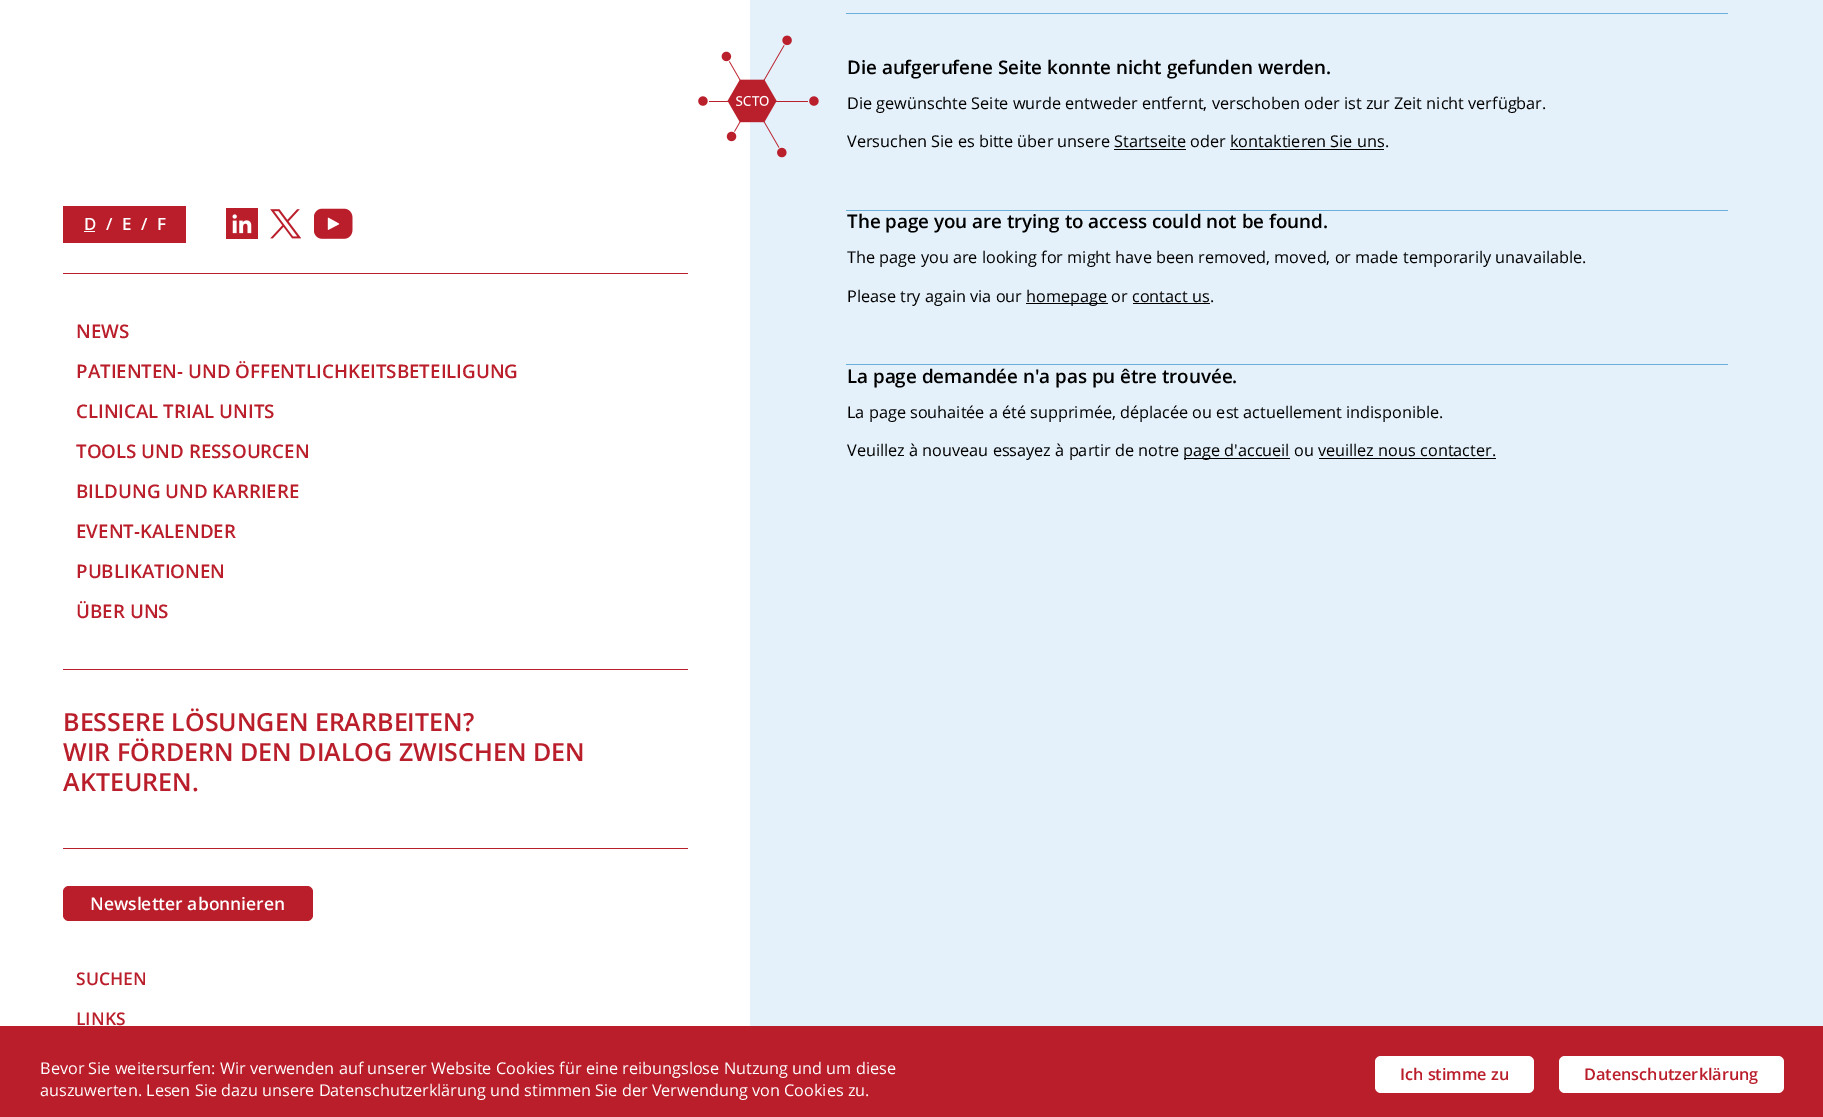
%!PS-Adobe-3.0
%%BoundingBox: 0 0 1823 1117
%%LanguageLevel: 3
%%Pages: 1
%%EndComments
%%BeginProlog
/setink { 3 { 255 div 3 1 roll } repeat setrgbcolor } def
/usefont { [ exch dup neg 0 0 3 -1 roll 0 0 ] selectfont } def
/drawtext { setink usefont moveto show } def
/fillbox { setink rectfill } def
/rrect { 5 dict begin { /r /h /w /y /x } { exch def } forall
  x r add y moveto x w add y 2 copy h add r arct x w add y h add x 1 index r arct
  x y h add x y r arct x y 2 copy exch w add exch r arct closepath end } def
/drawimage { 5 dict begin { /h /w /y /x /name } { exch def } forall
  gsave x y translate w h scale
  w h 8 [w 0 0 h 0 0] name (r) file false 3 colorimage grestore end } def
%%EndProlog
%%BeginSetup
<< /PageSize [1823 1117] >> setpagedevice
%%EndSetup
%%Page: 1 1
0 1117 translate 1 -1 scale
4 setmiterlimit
0 0 1823 1117 228 241 250 fillbox
0 0 750 1026 255 255 255 fillbox
(assets/img1.rgb) 698 35 121 123 drawimage
63 206 123 37 186 30 43 fillbox
(D) 84 230 /OpenSans-Bold 16.25 255 255 255 drawtext
84 231 11 1 255 255 255 fillbox
(/) 106 230 /OpenSans-Bold 16.25 255 255 255 drawtext
(E) 122 230 /OpenSans-Bold 16.25 255 255 255 drawtext
(/) 141 230 /OpenSans-Bold 16.25 255 255 255 drawtext
(F) 157 230 /OpenSans-Bold 16.25 255 255 255 drawtext
(assets/img2.rgb) 226 208 32 31 drawimage
(assets/img3.rgb) 270 209 31 30 drawimage
(assets/img4.rgb) 314 208 39 31 drawimage
63 273 625 1 186 30 43 fillbox
(NEWS) 76 338 /OpenSans-SemiBold 18.75 186 30 43 drawtext
(PATIENTEN- UND ÖFFENTLICHKEITSBETEILIGUNG) 76 378 /OpenSans-SemiBold 18.75 186 30 43 drawtext
(CLINICAL TRIAL UNITS) 76 418 /OpenSans-SemiBold 18.75 186 30 43 drawtext
(TOOLS UND RESSOURCEN) 76 458 /OpenSans-SemiBold 18.75 186 30 43 drawtext
(BILDUNG UND KARRIERE) 76 498 /OpenSans-SemiBold 18.75 186 30 43 drawtext
(EVENT-KALENDER) 76 538 /OpenSans-SemiBold 18.75 186 30 43 drawtext
(PUBLIKATIONEN) 76 578 /OpenSans-SemiBold 18.75 186 30 43 drawtext
(ÜBER UNS) 76 618 /OpenSans-SemiBold 18.75 186 30 43 drawtext
63 669 625 1 186 30 43 fillbox
(BESSERE LÖSUNGEN ERARBEITEN?) 63 731 /OpenSans-SemiBold 25 186 30 43 drawtext
(WIR FÖRDERN DEN DIALOG ZWISCHEN DEN) 63 761 /OpenSans-SemiBold 25 186 30 43 drawtext
(AKTEUREN.) 63 791 /OpenSans-SemiBold 25 186 30 43 drawtext
63 848 625 1 186 30 43 fillbox
63 886 250 35 6 rrect fill
(Newsletter abonnieren) 90 910 /OpenSans-SemiBold 17.5 255 255 255 drawtext
(SUCHEN) 76 985 /OpenSans-SemiBold 17.5 186 30 43 drawtext
(LINKS) 76 1025 /OpenSans-SemiBold 17.5 186 30 43 drawtext
846 13 882 1 105 177 218 fillbox
(Die aufgerufene Seite konnte nicht gefunden werden.) 847 74 /OpenSans-SemiBold 18.75 0 0 0 drawtext
(Die gewünschte Seite wurde entweder entfernt, verschoben oder ist zur Zeit nicht verfügbar.) 847 109 /OpenSans-Regular 16.25 0 0 0 drawtext
(Versuchen Sie es bitte über unsere Startseite oder kontaktieren Sie uns.) 847 147 /OpenSans-Regular 16.25 0 0 0 drawtext
1114 149 72 1 0 0 0 fillbox
1230 149 154 1 0 0 0 fillbox
846 210 882 1 105 177 218 fillbox
(The page you are trying to access could not be found.) 847 228 /OpenSans-SemiBold 18.75 0 0 0 drawtext
(The page you are looking for might have been removed, moved, or made temporarily unavailable.) 847 263 /OpenSans-Regular 16.25 0 0 0 drawtext
(Please try again via our) 847 302 /OpenSans-Regular 16.25 0 0 0 drawtext
1026 303 82 1 0 0 0 fillbox
(homepage or contact us.) 1026 302 /OpenSans-Regular 16.25 0 0 0 drawtext
1133 303 77 1 0 0 0 fillbox
846 364 882 1 105 177 218 fillbox
(La page demandée n'a pas pu être trouvée.) 847 383 /OpenSans-SemiBold 18.75 0 0 0 drawtext
(La page souhaitée a été supprimée, déplacée ou est actuellement indisponible.) 847 418 /OpenSans-Regular 16.25 0 0 0 drawtext
(Veuillez à nouveau essayez à partir de notre) 847 456 /OpenSans-Regular 16.25 0 0 0 drawtext
1184 458 106 1 0 0 0 fillbox
(page d'accueil ou veuillez nous contacter.) 1183 456 /OpenSans-Regular 16.25 0 0 0 drawtext
1319 458 177 1 0 0 0 fillbox
0 1026 1823 91 186 30 43 fillbox
(Bevor Sie weitersurfen: Wir verwenden auf unserer Website Cookies für eine reibungslose Nutzung und um diese) 40 1074 /OpenSans-Regular 16.25 255 255 255 drawtext
(auszuwerten. Lesen Sie dazu unsere Datenschutzerklärung und stimmen Sie der Verwendung von Cookies zu.) 40 1096 /OpenSans-Regular 16.25 255 255 255 drawtext
1375 1056 159 37 6 rrect fill
(Ich stimme zu) 1400 1080 /OpenSans-SemiBold 16.25 186 30 43 drawtext
255 255 255 setink
1559 1056 225 37 6 rrect fill
(Datenschutzerklärung) 1584 1080 /OpenSans-SemiBold 16.25 186 30 43 drawtext
showpage
%%EOF
